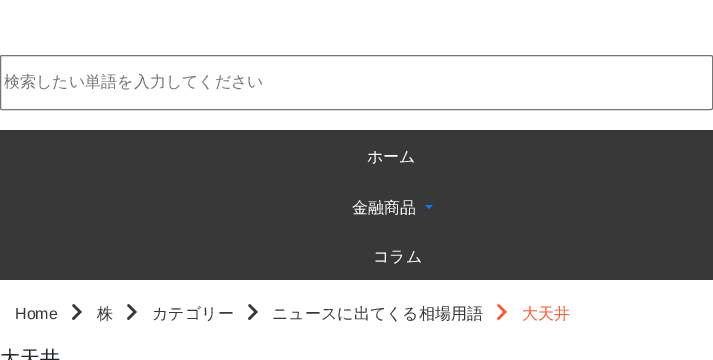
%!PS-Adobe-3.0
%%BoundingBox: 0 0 713 360
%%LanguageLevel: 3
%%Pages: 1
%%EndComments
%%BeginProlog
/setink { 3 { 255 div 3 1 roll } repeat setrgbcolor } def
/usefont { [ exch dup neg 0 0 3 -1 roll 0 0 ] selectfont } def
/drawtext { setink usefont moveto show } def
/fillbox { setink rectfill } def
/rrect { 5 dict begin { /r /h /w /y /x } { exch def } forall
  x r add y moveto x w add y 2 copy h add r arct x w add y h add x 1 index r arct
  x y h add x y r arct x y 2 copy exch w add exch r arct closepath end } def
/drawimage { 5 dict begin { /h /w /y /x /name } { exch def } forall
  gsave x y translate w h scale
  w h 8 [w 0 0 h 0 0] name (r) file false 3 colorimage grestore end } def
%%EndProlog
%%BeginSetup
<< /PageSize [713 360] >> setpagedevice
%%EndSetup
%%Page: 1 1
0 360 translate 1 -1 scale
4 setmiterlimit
0 0 713 360 255 255 255 fillbox
118 118 118 setink
0.5 55.5 712 54 1.5 rrect stroke
(検索したい単語を入力してください) 4 87 /WenQuanYiZenHei-Medium 16 117 117 117 drawtext
0 130 713 150 56 56 56 fillbox
(ホーム) 367 162 /WenQuanYiZenHei-Medium 16 255 255 255 drawtext
(金融商品) 352 213 /WenQuanYiZenHei-Medium 16 255 255 255 drawtext
0 123 255 setink
425 205 moveto 433 205 lineto 429 209 lineto closepath fill
(コラム) 373 262 /WenQuanYiZenHei-Medium 16 255 255 255 drawtext
(Home) 15 319 /LiberationSans-Regular 16 56 56 56 drawtext
(assets/img1.rgb) 72 304 10 16 drawimage
(株) 97 319 /WenQuanYiZenHei-Medium 16 56 56 56 drawtext
(assets/img1.rgb) 127 304 10 16 drawimage
(カテゴリー) 152 319 /WenQuanYiZenHei-Medium 16 56 56 56 drawtext
(assets/img1.rgb) 248 304 10 16 drawimage
(ニュースに出てくる相場用語) 272 319 /WenQuanYiZenHei-Medium 16 56 56 56 drawtext
(assets/img2.rgb) 497 304 10 16 drawimage
(大天井) 522 319 /WenQuanYiZenHei-Medium 16 255 89 51 drawtext
(大天井) 0 365 /WenQuanYiZenHei-Medium 20 33 37 41 drawtext
showpage
%%EOF
